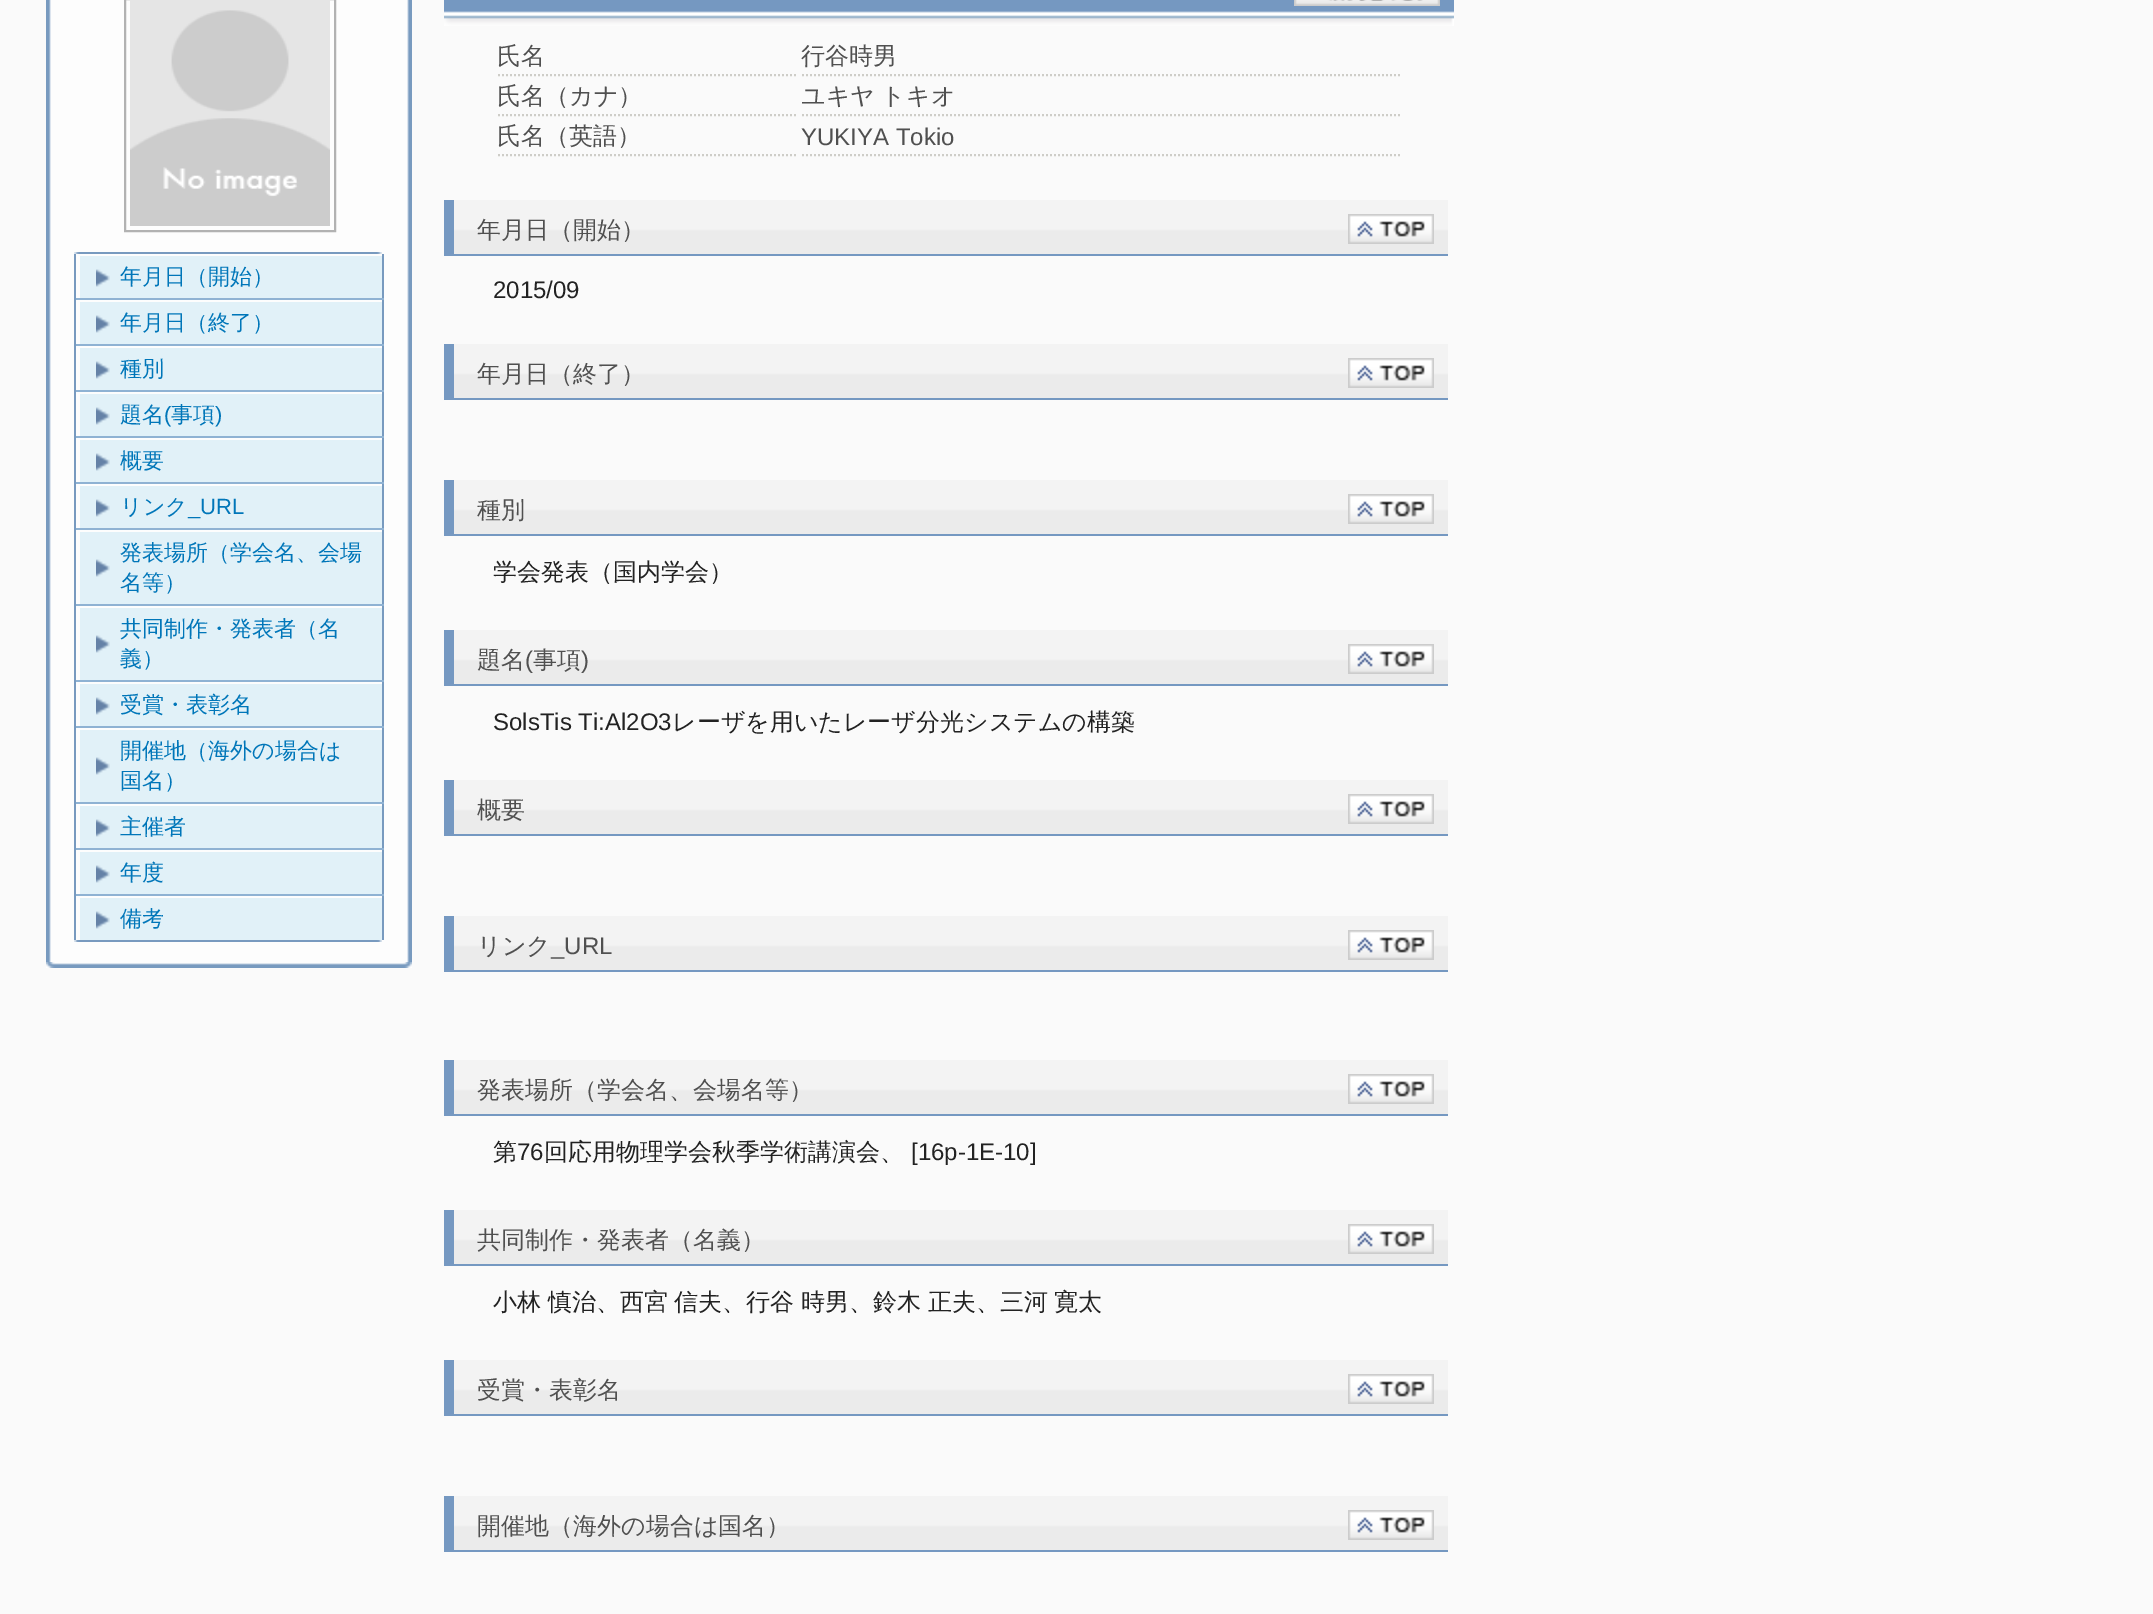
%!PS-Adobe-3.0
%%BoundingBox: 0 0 2153 1614
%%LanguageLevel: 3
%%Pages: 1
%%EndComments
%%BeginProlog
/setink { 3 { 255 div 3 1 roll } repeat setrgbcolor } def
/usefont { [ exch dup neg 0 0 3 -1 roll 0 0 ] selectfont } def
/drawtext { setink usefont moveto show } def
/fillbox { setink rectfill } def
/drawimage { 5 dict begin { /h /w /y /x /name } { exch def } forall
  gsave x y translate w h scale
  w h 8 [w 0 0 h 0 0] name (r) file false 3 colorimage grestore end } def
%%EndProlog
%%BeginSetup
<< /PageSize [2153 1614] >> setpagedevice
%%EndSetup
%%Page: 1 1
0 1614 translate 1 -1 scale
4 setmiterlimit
0 0 2153 1614 250 250 250 fillbox
(assets/img1.rgb) 46 0 366 962 drawimage
178 178 178 setink
2 setlinewidth
125 -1 210 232 rectstroke
(assets/img2.rgb) 130 0 200 226 drawimage
(assets/img3.rgb) 74 252 308 2 drawimage
382 254 2 686 120 154 191 fillbox
74 298 310 2 143 178 211 fillbox
74 254 2 46 120 154 191 fillbox
80 256 302 42 225 241 248 fillbox
(assets/img4.rgb) 96 269 14 18 drawimage
(年月日（開始）) 120 284 /WenQuanYiZenHei-Medium 22 0 118 185 drawtext
74 344 310 2 143 178 211 fillbox
74 300 2 46 120 154 191 fillbox
80 302 302 42 225 241 248 fillbox
(assets/img4.rgb) 96 315 14 18 drawimage
(年月日（終了）) 120 330 /WenQuanYiZenHei-Medium 22 0 118 185 drawtext
74 390 310 2 143 178 211 fillbox
74 346 2 46 120 154 191 fillbox
80 348 302 42 225 241 248 fillbox
(assets/img4.rgb) 96 361 14 18 drawimage
(種別) 120 376 /WenQuanYiZenHei-Medium 22 0 118 185 drawtext
74 436 310 2 143 178 211 fillbox
74 392 2 46 120 154 191 fillbox
80 394 302 42 225 241 248 fillbox
(assets/img4.rgb) 96 407 14 18 drawimage
(題名) 120 422 /WenQuanYiZenHei-Medium 22 0 118 185 drawtext
(\() 164 422 /LiberationSans-Regular 22 0 118 185 drawtext
(事項) 171 422 /WenQuanYiZenHei-Medium 22 0 118 185 drawtext
(\)) 215 422 /LiberationSans-Regular 22 0 118 185 drawtext
74 482 310 2 143 178 211 fillbox
74 438 2 46 120 154 191 fillbox
80 440 302 42 225 241 248 fillbox
(assets/img4.rgb) 96 453 14 18 drawimage
(概要) 120 468 /WenQuanYiZenHei-Medium 22 0 118 185 drawtext
74 528 310 2 143 178 211 fillbox
74 484 2 46 120 154 191 fillbox
80 486 302 42 225 241 248 fillbox
(assets/img4.rgb) 96 499 14 18 drawimage
(リンク) 120 514 /WenQuanYiZenHei-Medium 22 0 118 185 drawtext
(_URL) 188 514 /LiberationSans-Regular 22 0 118 185 drawtext
74 604 310 2 143 178 211 fillbox
74 530 2 76 120 154 191 fillbox
80 532 302 72 225 241 248 fillbox
(assets/img4.rgb) 96 559 14 18 drawimage
(発表場所（学会名、会場) 120 560 /WenQuanYiZenHei-Medium 22 0 118 185 drawtext
(名等）) 120 590 /WenQuanYiZenHei-Medium 22 0 118 185 drawtext
74 680 310 2 143 178 211 fillbox
74 606 2 76 120 154 191 fillbox
80 608 302 72 225 241 248 fillbox
(assets/img4.rgb) 96 635 14 18 drawimage
(共同制作・発表者（名) 120 636 /WenQuanYiZenHei-Medium 22 0 118 185 drawtext
(義）) 120 666 /WenQuanYiZenHei-Medium 22 0 118 185 drawtext
74 726 310 2 143 178 211 fillbox
74 682 2 46 120 154 191 fillbox
80 684 302 42 225 241 248 fillbox
(assets/img4.rgb) 96 697 14 18 drawimage
(受賞・表彰名) 120 712 /WenQuanYiZenHei-Medium 22 0 118 185 drawtext
74 802 310 2 143 178 211 fillbox
74 728 2 76 120 154 191 fillbox
80 730 302 72 225 241 248 fillbox
(assets/img4.rgb) 96 757 14 18 drawimage
(開催地（海外の場合は) 120 758 /WenQuanYiZenHei-Medium 22 0 118 185 drawtext
(国名）) 120 788 /WenQuanYiZenHei-Medium 22 0 118 185 drawtext
74 848 310 2 143 178 211 fillbox
74 804 2 46 120 154 191 fillbox
80 806 302 42 225 241 248 fillbox
(assets/img4.rgb) 96 819 14 18 drawimage
(主催者) 120 834 /WenQuanYiZenHei-Medium 22 0 118 185 drawtext
74 894 310 2 143 178 211 fillbox
74 850 2 90 120 154 191 fillbox
80 852 302 42 225 241 248 fillbox
(assets/img4.rgb) 96 865 14 18 drawimage
(年度) 120 880 /WenQuanYiZenHei-Medium 22 0 118 185 drawtext
80 898 302 42 225 241 248 fillbox
(assets/img4.rgb) 96 911 14 18 drawimage
(備考) 120 926 /WenQuanYiZenHei-Medium 22 0 118 185 drawtext
(assets/img5.rgb) 74 940 308 2 drawimage
(assets/img6.rgb) 46 962 366 6 drawimage
(assets/img7.rgb) 444 0 1010 26 drawimage
(assets/img8.rgb) 1294 0 146 6 drawimage
206 205 200 setink
[2 2] 0 setdash
498 75 moveto 798 75 lineto stroke
(氏名) 497 64 /WenQuanYiZenHei-Medium 24 80 80 80 drawtext
206 205 200 setink
802 75 moveto 1402 75 lineto stroke
(行谷時男) 801 64 /WenQuanYiZenHei-Medium 24 80 80 80 drawtext
206 205 200 setink
498 115 moveto 798 115 lineto stroke
(氏名（カナ）) 497 104 /WenQuanYiZenHei-Medium 24 80 80 80 drawtext
206 205 200 setink
802 115 moveto 1402 115 lineto stroke
80 80 80 setink
801 104 moveto -0.5 0 32 (ユキヤ トキオ) widthshow
206 205 200 setink
498 155 moveto 798 155 lineto stroke
(氏名（英語）) 497 144 /WenQuanYiZenHei-Medium 24 80 80 80 drawtext
206 205 200 setink
802 155 moveto 1402 155 lineto stroke
(YUKIYA Tokio) 801 145 /LiberationSans-Regular 24 80 80 80 drawtext
(assets/img9.rgb) 454 200 994 54 drawimage
454 254 994 2 117 152 193 fillbox
444 200 10 56 117 152 193 fillbox
(年月日（開始）) 477 238 /WenQuanYiZenHei-Medium 24 80 80 80 drawtext
(assets/img10.rgb) 1348 214 86 30 drawimage
(2015/09) 493 298 /LiberationSans-Regular 24 34 34 34 drawtext
(assets/img9.rgb) 454 344 994 54 drawimage
454 398 994 2 117 152 193 fillbox
444 344 10 56 117 152 193 fillbox
(年月日（終了）) 477 382 /WenQuanYiZenHei-Medium 24 80 80 80 drawtext
(assets/img10.rgb) 1348 358 86 30 drawimage
(assets/img9.rgb) 454 480 994 54 drawimage
454 534 994 2 117 152 193 fillbox
444 480 10 56 117 152 193 fillbox
(種別) 477 518 /WenQuanYiZenHei-Medium 24 80 80 80 drawtext
(assets/img10.rgb) 1348 494 86 30 drawimage
(学会発表（国内学会）) 493 580 /WenQuanYiZenHei-Medium 24 34 34 34 drawtext
(assets/img9.rgb) 454 630 994 54 drawimage
454 684 994 2 117 152 193 fillbox
444 630 10 56 117 152 193 fillbox
(題名) 477 668 /WenQuanYiZenHei-Medium 24 80 80 80 drawtext
(\() 525 668 /LiberationSans-Regular 24 80 80 80 drawtext
(事項) 533 668 /WenQuanYiZenHei-Medium 24 80 80 80 drawtext
(\)) 581 668 /LiberationSans-Regular 24 80 80 80 drawtext
(assets/img10.rgb) 1348 644 86 30 drawimage
(SolsTis Ti:Al2O3) 493 730 /LiberationSans-Regular 24 34 34 34 drawtext
(レーザを用いたレーザ分光システムの構築) 672 730 /WenQuanYiZenHei-Medium 24 34 34 34 drawtext
(assets/img9.rgb) 454 780 994 54 drawimage
454 834 994 2 117 152 193 fillbox
444 780 10 56 117 152 193 fillbox
(概要) 477 818 /WenQuanYiZenHei-Medium 24 80 80 80 drawtext
(assets/img10.rgb) 1348 794 86 30 drawimage
(assets/img9.rgb) 454 916 994 54 drawimage
454 970 994 2 117 152 193 fillbox
444 916 10 56 117 152 193 fillbox
(リンク) 477 954 /WenQuanYiZenHei-Medium 24 80 80 80 drawtext
(_URL) 551 954 /LiberationSans-Regular 24 80 80 80 drawtext
(assets/img10.rgb) 1348 930 86 30 drawimage
(assets/img9.rgb) 454 1060 994 54 drawimage
454 1114 994 2 117 152 193 fillbox
444 1060 10 56 117 152 193 fillbox
(発表場所（学会名、会場名等）) 477 1098 /WenQuanYiZenHei-Medium 24 80 80 80 drawtext
(assets/img10.rgb) 1348 1074 86 30 drawimage
(第) 493 1160 /WenQuanYiZenHei-Medium 24 34 34 34 drawtext
(76) 517 1160 /LiberationSans-Regular 24 34 34 34 drawtext
(回応用物理学会秋季学術講演会、) 544 1160 /WenQuanYiZenHei-Medium 24 34 34 34 drawtext
([16p-1E-10]) 911 1160 /LiberationSans-Regular 24 34 34 34 drawtext
(assets/img9.rgb) 454 1210 994 54 drawimage
454 1264 994 2 117 152 193 fillbox
444 1210 10 56 117 152 193 fillbox
(共同制作・発表者（名義）) 477 1248 /WenQuanYiZenHei-Medium 24 80 80 80 drawtext
(assets/img10.rgb) 1348 1224 86 30 drawimage
34 34 34 setink
493 1310 moveto -0.5 0 32 (小林 慎治、西宮 信夫、行谷 時男、鈴木 正夫、三河 寛太) widthshow
(assets/img9.rgb) 454 1360 994 54 drawimage
454 1414 994 2 117 152 193 fillbox
444 1360 10 56 117 152 193 fillbox
(受賞・表彰名) 477 1398 /WenQuanYiZenHei-Medium 24 80 80 80 drawtext
(assets/img10.rgb) 1348 1374 86 30 drawimage
(assets/img9.rgb) 454 1496 994 54 drawimage
454 1550 994 2 117 152 193 fillbox
444 1496 10 56 117 152 193 fillbox
(開催地（海外の場合は国名）) 477 1534 /WenQuanYiZenHei-Medium 24 80 80 80 drawtext
(assets/img10.rgb) 1348 1510 86 30 drawimage
showpage
%%EOF
